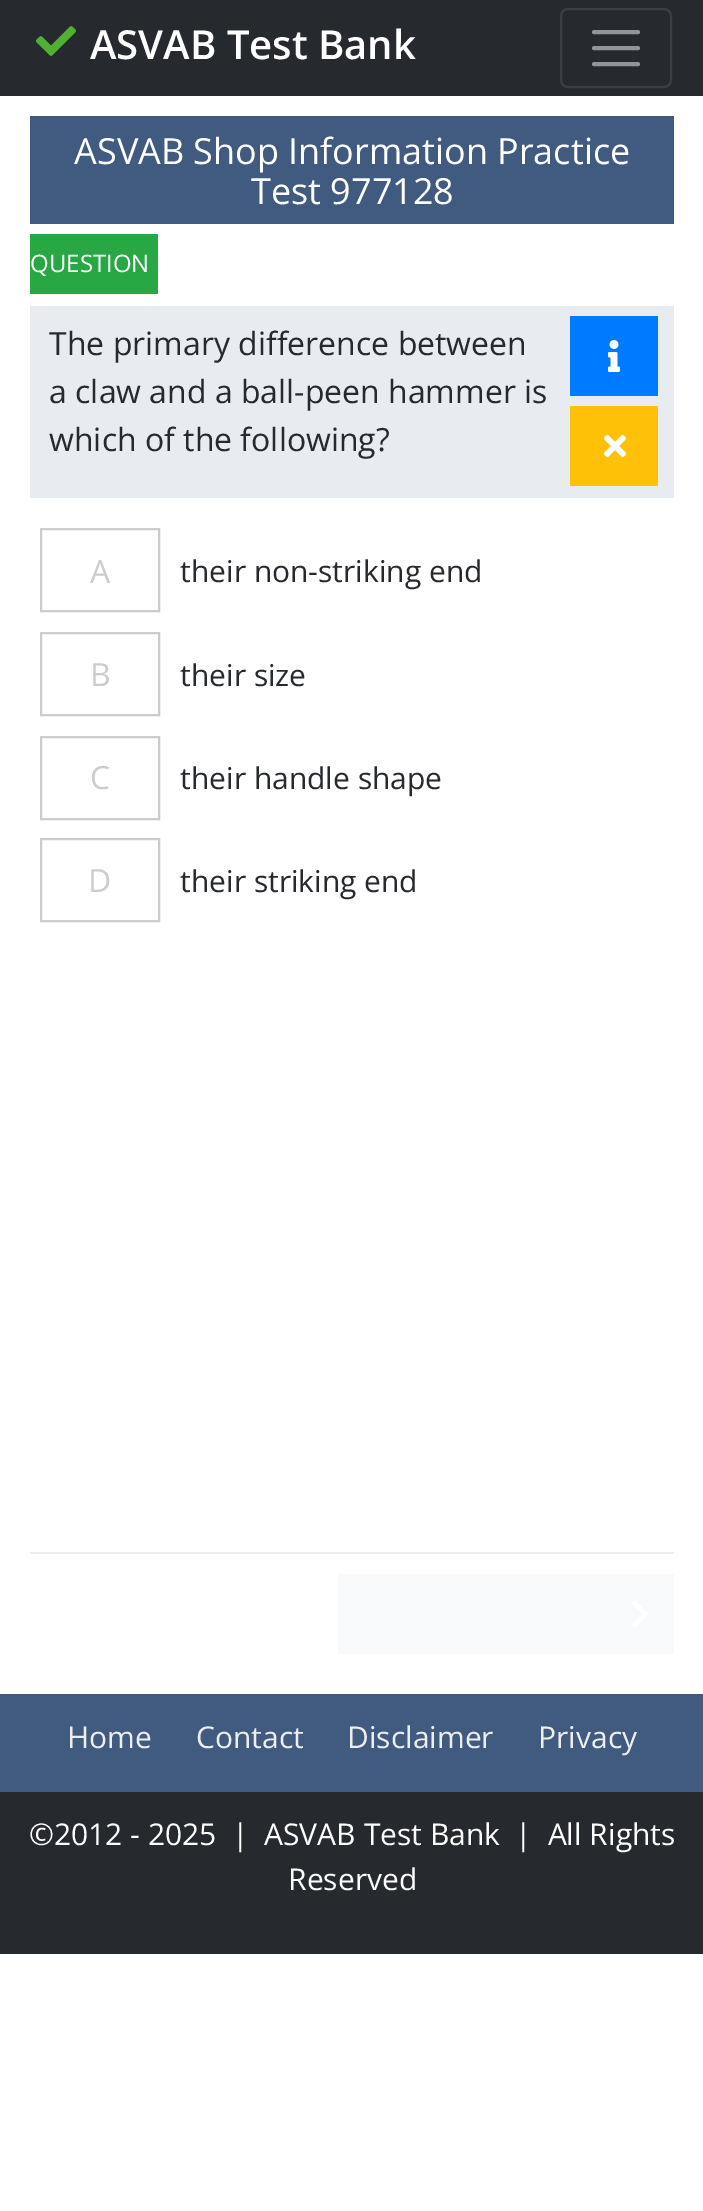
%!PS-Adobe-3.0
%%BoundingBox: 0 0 703 2211
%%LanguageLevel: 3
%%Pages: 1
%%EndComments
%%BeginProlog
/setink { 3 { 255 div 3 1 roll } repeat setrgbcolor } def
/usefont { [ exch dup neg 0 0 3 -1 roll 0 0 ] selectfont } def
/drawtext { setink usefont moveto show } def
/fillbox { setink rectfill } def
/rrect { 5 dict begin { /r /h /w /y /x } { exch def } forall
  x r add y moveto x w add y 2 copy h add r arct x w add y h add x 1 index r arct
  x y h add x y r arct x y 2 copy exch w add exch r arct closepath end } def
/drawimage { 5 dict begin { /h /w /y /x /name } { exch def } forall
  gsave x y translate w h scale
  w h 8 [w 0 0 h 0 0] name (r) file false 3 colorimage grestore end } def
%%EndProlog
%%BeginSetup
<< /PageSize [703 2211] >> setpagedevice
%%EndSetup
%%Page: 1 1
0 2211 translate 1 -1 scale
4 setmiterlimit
0 0 703 2211 255 255 255 fillbox
0 0 703 96 38 41 46 fillbox
(assets/img1.rgb) 36 26 40 30 drawimage
(ASVAB Test Bank) 90 59 /OpenSans-SemiBold 40 255 255 255 drawtext
60 62 67 setink
2 setlinewidth
561 9 110 78 7 rrect stroke
147 148 151 setink
4 setlinewidth
1 setlinecap
594 32 moveto 638 32 lineto 594 48 moveto 638 48 lineto 594 64 moveto 638 64 lineto stroke
30 116 644 108 64 91 127 fillbox
(ASVAB Shop Information Practice) 74 164 /OpenSans-Regular 36 255 255 255 drawtext
(Test 977128) 251 204 /OpenSans-Regular 36 255 255 255 drawtext
30 234 128 60 40 167 69 fillbox
(QUESTION) 30 272 /OpenSans-Regular 24 255 255 255 drawtext
30 306 644 192 232 236 240 fillbox
(The primary difference between) 49 355 /OpenSans-Regular 32 38 41 46 drawtext
(a claw and a ball-peen hammer is) 49 403 /OpenSans-Regular 32 38 41 46 drawtext
(which of the following?) 49 451 /OpenSans-Regular 32 38 41 46 drawtext
570 316 88 80 0 123 255 fillbox
(assets/img2.rgb) 608 340 12 32 drawimage
570 406 88 80 255 193 7 fillbox
(assets/img3.rgb) 604 435 22 22 drawimage
204 204 204 setink
2 setlinewidth
0 setlinecap
41 529 118 82 rectstroke
(A) 90 583 /OpenSans-Regular 32 204 204 204 drawtext
(their non-striking end) 180 582 /OpenSans-Regular 30 38 41 46 drawtext
204 204 204 setink
41 633 118 82 rectstroke
(B) 90 686 /OpenSans-Regular 32 204 204 204 drawtext
(their size) 180 686 /OpenSans-Regular 30 38 41 46 drawtext
204 204 204 setink
41 737 118 82 rectstroke
(C) 90 789 /OpenSans-Regular 32 204 204 204 drawtext
(their handle shape) 180 789 /OpenSans-Regular 30 38 41 46 drawtext
204 204 204 setink
41 839 118 82 rectstroke
(D) 88 892 /OpenSans-Regular 32 204 204 204 drawtext
(their striking end) 180 892 /OpenSans-Regular 30 38 41 46 drawtext
30 1552 644 2 238 238 238 fillbox
338 1574 336 80 248 249 250 fillbox
(assets/img4.rgb) 632 1600 16 28 drawimage
0 1694 703 98 64 91 127 fillbox
(Home) 67 1748 /OpenSans-Regular 30 238 238 238 drawtext
(Contact) 196 1748 /OpenSans-Regular 30 238 238 238 drawtext
(Disclaimer) 347 1748 /OpenSans-Regular 30 238 238 238 drawtext
(Privacy) 538 1748 /OpenSans-Regular 30 238 238 238 drawtext
0 1792 703 162 38 41 46 fillbox
(©2012 - 2025  |  ASVAB Test Bank  |  All Rights) 29 1845 /OpenSans-Regular 30 255 255 255 drawtext
(Reserved) 288 1890 /OpenSans-Regular 30 255 255 255 drawtext
showpage
%%EOF
